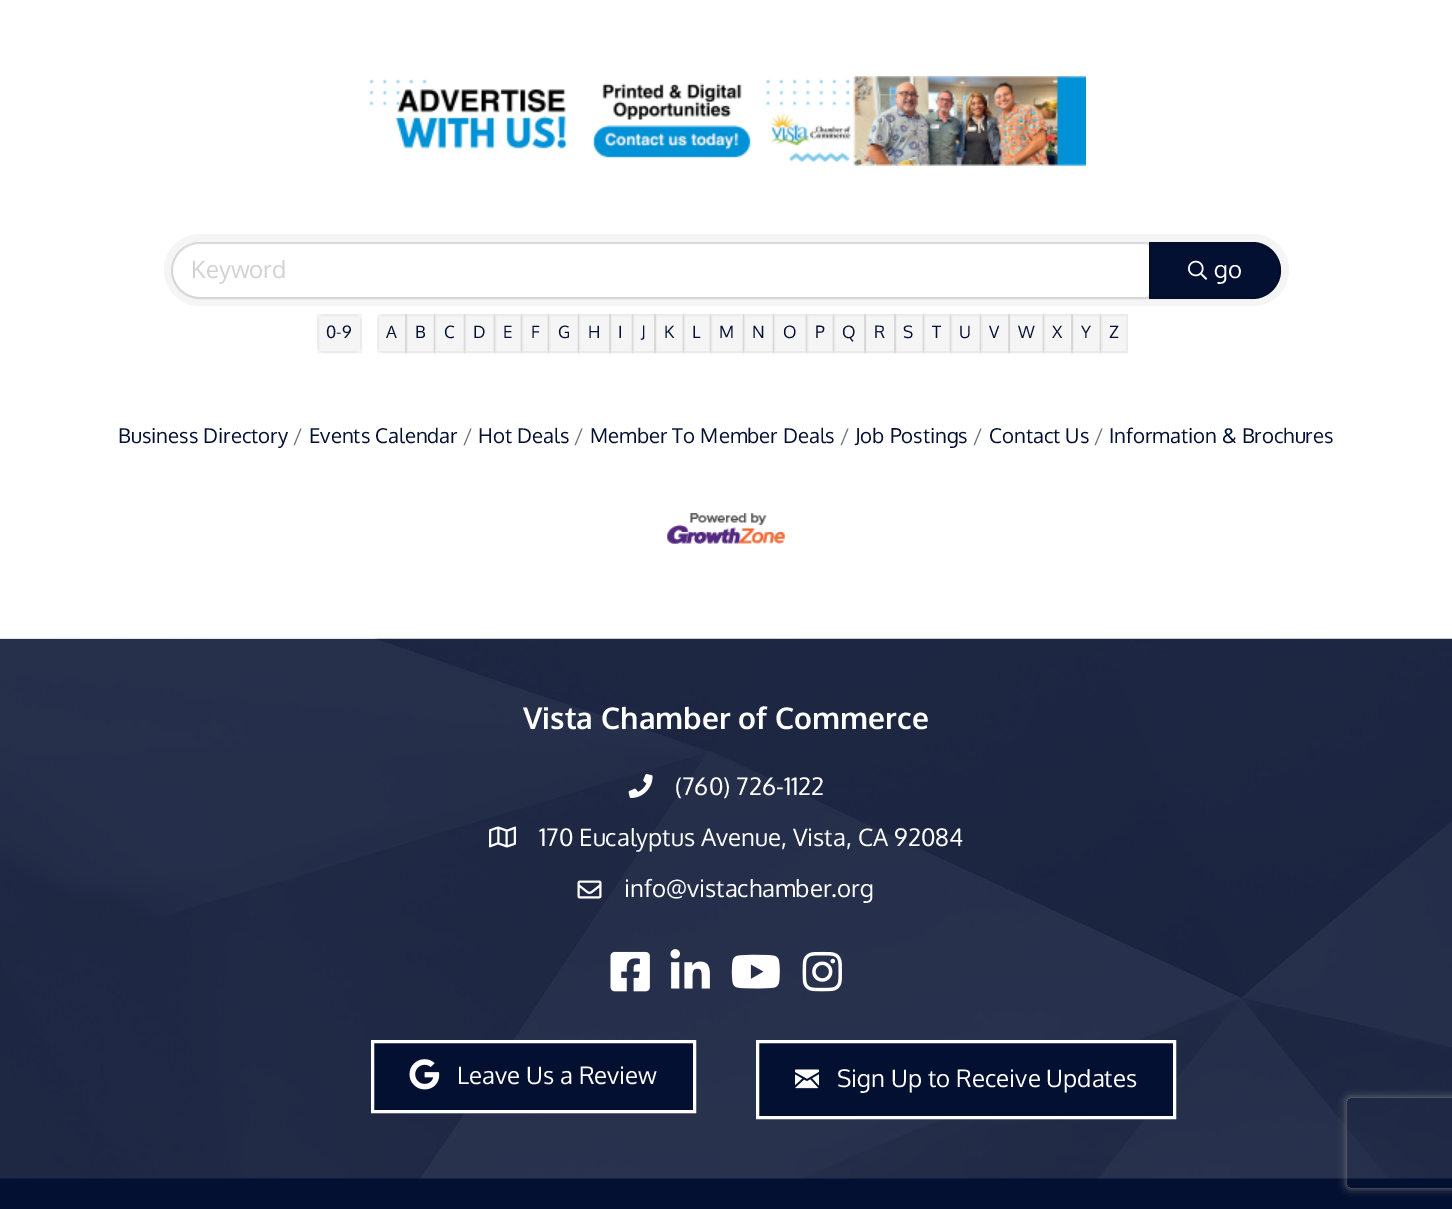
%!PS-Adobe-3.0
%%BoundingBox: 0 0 1452 1209
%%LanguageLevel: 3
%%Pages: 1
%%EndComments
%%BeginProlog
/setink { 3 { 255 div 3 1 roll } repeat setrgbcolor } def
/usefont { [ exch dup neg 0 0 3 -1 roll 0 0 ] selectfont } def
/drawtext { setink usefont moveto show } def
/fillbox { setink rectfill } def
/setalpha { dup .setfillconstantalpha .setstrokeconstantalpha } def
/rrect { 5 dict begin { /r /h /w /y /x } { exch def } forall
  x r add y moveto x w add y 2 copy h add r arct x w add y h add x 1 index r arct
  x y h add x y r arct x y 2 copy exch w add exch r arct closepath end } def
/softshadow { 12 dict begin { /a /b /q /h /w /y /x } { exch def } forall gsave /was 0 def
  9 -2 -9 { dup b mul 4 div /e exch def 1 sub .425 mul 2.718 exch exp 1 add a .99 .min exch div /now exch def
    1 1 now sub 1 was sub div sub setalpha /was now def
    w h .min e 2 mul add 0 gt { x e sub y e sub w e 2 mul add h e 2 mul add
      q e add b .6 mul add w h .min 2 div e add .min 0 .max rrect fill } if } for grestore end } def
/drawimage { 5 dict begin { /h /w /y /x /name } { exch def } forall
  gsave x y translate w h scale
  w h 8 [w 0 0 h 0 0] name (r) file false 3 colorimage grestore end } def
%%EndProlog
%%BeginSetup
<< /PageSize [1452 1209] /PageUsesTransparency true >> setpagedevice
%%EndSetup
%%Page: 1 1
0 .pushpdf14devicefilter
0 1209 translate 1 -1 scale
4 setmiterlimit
0 0 1452 1209 255 255 255 fillbox
(assets/img1.rgb) 369 76 717 90 drawimage
245 245 245 setink
164 234 1125 72 36 rrect fill
255 255 255 setink
200 243 moveto 1146 243 lineto 1147.5 243 1149 244.5 1149 246 curveto 1149 294 lineto 1149 295.5 1147.5 297 1146 297 curveto 200 297 lineto 185 297 173 285 173 270 curveto 173 255 185 243 200 243 curveto closepath fill
0.12 setalpha
0 0 0 setink
2 setlinewidth
199.5 243 moveto 1146 243 lineto 1148 243 1150 245 1150 247 curveto 1150 294 lineto 1150 296 1148 298 1146 298 curveto 199.5 298 lineto 184.5 298 172 285.5 172 270.5 curveto 172 255.5 184.5 243 199.5 243 curveto closepath stroke
1 setalpha
(Keyword) 191 278 /Oxygen-Regular 24 210 210 210 drawtext
4 16 49 setink
1149 242 moveto 1252.5 242 lineto 1268 242 1281 255 1281 270.5 curveto 1281 286 1268 299 1252.5 299 curveto 1149 299 lineto closepath fill
0.12 setalpha
0 0 0 setink
1150 243 moveto 1252.5 243 lineto 1267.5 243 1280 255.5 1280 270.5 curveto 1280 285.5 1267.5 298 1252.5 298 curveto 1150 298 lineto closepath stroke
1 setalpha
(assets/img2.rgb) 1188 260 20 20 drawimage
(go) 1214 278 /Oxygen-Regular 24 255 255 255 drawtext
245 245 245 setink
317 314 45 39 8 rrect fill
0.04 setalpha
0 0 0 setink
318 315 43 37 rectstroke
1 setalpha
(0-9) 326 338 /Oxygen-Regular 17 4 16 49 drawtext
245 245 245 setink
385 314 moveto 407 314 lineto 407 353 lineto 385 353 lineto 380.5 353 377 349.5 377 345 curveto 377 322 lineto 377 317.5 380.5 314 385 314 curveto closepath fill
0.04 setalpha
0 0 0 setink
378 315 28 37 rectstroke
1 setalpha
(A) 386 338 /Oxygen-Regular 17 4 16 49 drawtext
0.04 setalpha
405 314 30 39 0 0 0 fillbox
406 315 28 37 rectstroke
1 setalpha
(B) 415 338 /Oxygen-Regular 17 4 16 49 drawtext
0.04 setalpha
434 314 31 39 0 0 0 fillbox
435 315 29 37 rectstroke
1 setalpha
(C) 444 338 /Oxygen-Regular 17 4 16 49 drawtext
0.04 setalpha
464 314 31 39 0 0 0 fillbox
465 315 29 37 rectstroke
1 setalpha
(D) 473 338 /Oxygen-Regular 17 4 16 49 drawtext
0.04 setalpha
494 314 28 39 0 0 0 fillbox
495 315 26 37 rectstroke
1 setalpha
(E) 503 338 /Oxygen-Regular 17 4 16 49 drawtext
0.04 setalpha
521 314 28 39 0 0 0 fillbox
522 315 26 37 rectstroke
1 setalpha
(F) 531 338 /Oxygen-Regular 17 4 16 49 drawtext
0.04 setalpha
548 314 31 39 0 0 0 fillbox
549 315 29 37 rectstroke
1 setalpha
(G) 558 338 /Oxygen-Regular 17 4 16 49 drawtext
0.04 setalpha
578 314 33 39 0 0 0 fillbox
579 315 31 37 rectstroke
1 setalpha
(H) 588 338 /Oxygen-Regular 17 4 16 49 drawtext
0.04 setalpha
609 314 24 39 0 0 0 fillbox
610 315 22 37 rectstroke
1 setalpha
(I) 618 338 /Oxygen-Regular 17 4 16 49 drawtext
0.04 setalpha
632 314 24 39 0 0 0 fillbox
633 315 22 37 rectstroke
1 setalpha
(J) 641 338 /Oxygen-Regular 17 4 16 49 drawtext
0.04 setalpha
654 314 30 39 0 0 0 fillbox
655 315 28 37 rectstroke
1 setalpha
(K) 664 338 /Oxygen-Regular 17 4 16 49 drawtext
0.04 setalpha
683 314 28 39 0 0 0 fillbox
684 315 26 37 rectstroke
1 setalpha
(L) 692 338 /Oxygen-Regular 17 4 16 49 drawtext
0.04 setalpha
710 314 34 39 0 0 0 fillbox
711 315 32 37 rectstroke
1 setalpha
(M) 719 338 /Oxygen-Regular 17 4 16 49 drawtext
0.04 setalpha
743 314 31 39 0 0 0 fillbox
744 315 29 37 rectstroke
1 setalpha
(N) 752 338 /Oxygen-Regular 17 4 16 49 drawtext
0.04 setalpha
773 314 34 39 0 0 0 fillbox
774 315 32 37 rectstroke
1 setalpha
(O) 783 338 /Oxygen-Regular 17 4 16 49 drawtext
0.04 setalpha
806 314 28 39 0 0 0 fillbox
807 315 26 37 rectstroke
1 setalpha
(P) 815 338 /Oxygen-Regular 17 4 16 49 drawtext
0.04 setalpha
833 314 33 39 0 0 0 fillbox
834 315 31 37 rectstroke
1 setalpha
(Q) 842 338 /Oxygen-Regular 17 4 16 49 drawtext
0.04 setalpha
864 314 32 39 0 0 0 fillbox
865 315 30 37 rectstroke
1 setalpha
(R) 874 338 /Oxygen-Regular 17 4 16 49 drawtext
0.04 setalpha
894 314 30 39 0 0 0 fillbox
895 315 28 37 rectstroke
1 setalpha
(S) 903 338 /Oxygen-Regular 17 4 16 49 drawtext
0.04 setalpha
923 314 28 39 0 0 0 fillbox
924 315 26 37 rectstroke
1 setalpha
(T) 932 338 /Oxygen-Regular 17 4 16 49 drawtext
0.04 setalpha
950 314 31 39 0 0 0 fillbox
951 315 29 37 rectstroke
1 setalpha
(U) 959 338 /Oxygen-Regular 17 4 16 49 drawtext
0.04 setalpha
980 314 30 39 0 0 0 fillbox
981 315 28 37 rectstroke
1 setalpha
(V) 989 338 /Oxygen-Regular 17 4 16 49 drawtext
0.04 setalpha
1008 314 36 39 0 0 0 fillbox
1009 315 34 37 rectstroke
1 setalpha
(W) 1018 338 /Oxygen-Regular 17 4 16 49 drawtext
0.04 setalpha
1043 314 30 39 0 0 0 fillbox
1044 315 28 37 rectstroke
1 setalpha
(X) 1052 338 /Oxygen-Regular 17 4 16 49 drawtext
0.04 setalpha
1071 314 30 39 0 0 0 fillbox
1072 315 28 37 rectstroke
1 setalpha
(Y) 1081 338 /Oxygen-Regular 17 4 16 49 drawtext
0.04 setalpha
1100 314 28 39 0 0 0 fillbox
1101 315 26 37 rectstroke
1 setalpha
(Z) 1109 338 /Oxygen-Regular 17 4 16 49 drawtext
(Business Directory) 118 443 /Oxygen-Regular 20.4 4 16 49 drawtext
(/) 293 443 /Oxygen-Regular 20.4 108 117 125 drawtext
(Events Calendar) 309 443 /Oxygen-Regular 20.4 4 16 49 drawtext
(/) 463 443 /Oxygen-Regular 20.4 108 117 125 drawtext
(Hot Deals) 478 443 /Oxygen-Regular 20.4 4 16 49 drawtext
(/) 574 443 /Oxygen-Regular 20.4 108 117 125 drawtext
(Member To Member Deals) 590 443 /Oxygen-Regular 20.4 4 16 49 drawtext
(/) 840 443 /Oxygen-Regular 20.4 108 117 125 drawtext
(Job Postings) 855 443 /Oxygen-Regular 20.4 4 16 49 drawtext
(/) 973 443 /Oxygen-Regular 20.4 108 117 125 drawtext
(Contact Us) 989 443 /Oxygen-Regular 20.4 4 16 49 drawtext
(/) 1094 443 /Oxygen-Regular 20.4 108 117 125 drawtext
(Information & Brochures) 1109 443 /Oxygen-Regular 20.4 4 16 49 drawtext
(assets/img3.rgb) 667 513 118 31 drawimage
0 1178 1452 31 4 16 49 fillbox
(assets/img4.rgb) 0 638 1452 541 drawimage
(Vista Chamber of Commerce) 523 729 /Oxygen-Bold 30 255 255 255 drawtext
(assets/img5.rgb) 628 774 25 24 drawimage
(\(760\) 726-1122) 675 795 /Oxygen-Regular 24 255 255 255 drawtext
(assets/img6.rgb) 489 826 27 22 drawimage
(170 Eucalyptus Avenue, Vista, CA 92084) 539 846 /Oxygen-Regular 24 255 255 255 drawtext
(assets/img7.rgb) 577 880 25 19 drawimage
(info@vistachamber.org) 624 897 /Oxygen-Regular 24 255 255 255 drawtext
(assets/img8.rgb) 610 951 40 41 drawimage
(assets/img9.rgb) 670 949 40 40 drawimage
(assets/img10.rgb) 731 954 49 35 drawimage
(assets/img11.rgb) 802 951 40 41 drawimage
4 16 49 setink
372.5 1041.5 moveto 694.5 1041.5 lineto 694.5 1111.5 lineto 372.5 1111.5 lineto closepath gsave fill grestore
255 255 255 setink
3 setlinewidth
stroke
(assets/img12.rgb) 409 1059 31 31 drawimage
(Leave Us a Review) 457 1084 /Oxygen-Regular 24 255 255 255 drawtext
4 16 49 setink
757.5 1041.5 moveto 1174.5 1041.5 lineto 1174.5 1117.5 lineto 757.5 1117.5 lineto closepath gsave fill grestore
255 255 255 setink
stroke
(assets/img13.rgb) 795 1069 24 20 drawimage
(Sign Up to Receive Updates) 837 1087 /Oxygen-Regular 24 255 255 255 drawtext
gsave
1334 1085 moveto 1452 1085 lineto 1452 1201 lineto 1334 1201 lineto closepath 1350 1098 moveto 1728 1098 lineto 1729.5 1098 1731 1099.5 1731 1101 curveto 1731 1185 lineto 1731 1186.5 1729.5 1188 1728 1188 curveto 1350 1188 lineto 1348.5 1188 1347 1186.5 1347 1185 curveto 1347 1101 lineto 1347 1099.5 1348.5 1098 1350 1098 curveto closepath eoclip newpath
128 128 128 setink
1347 1098 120 90 3 4 1 softshadow
grestore
.poppdf14devicefilter showpage
%%EOF
